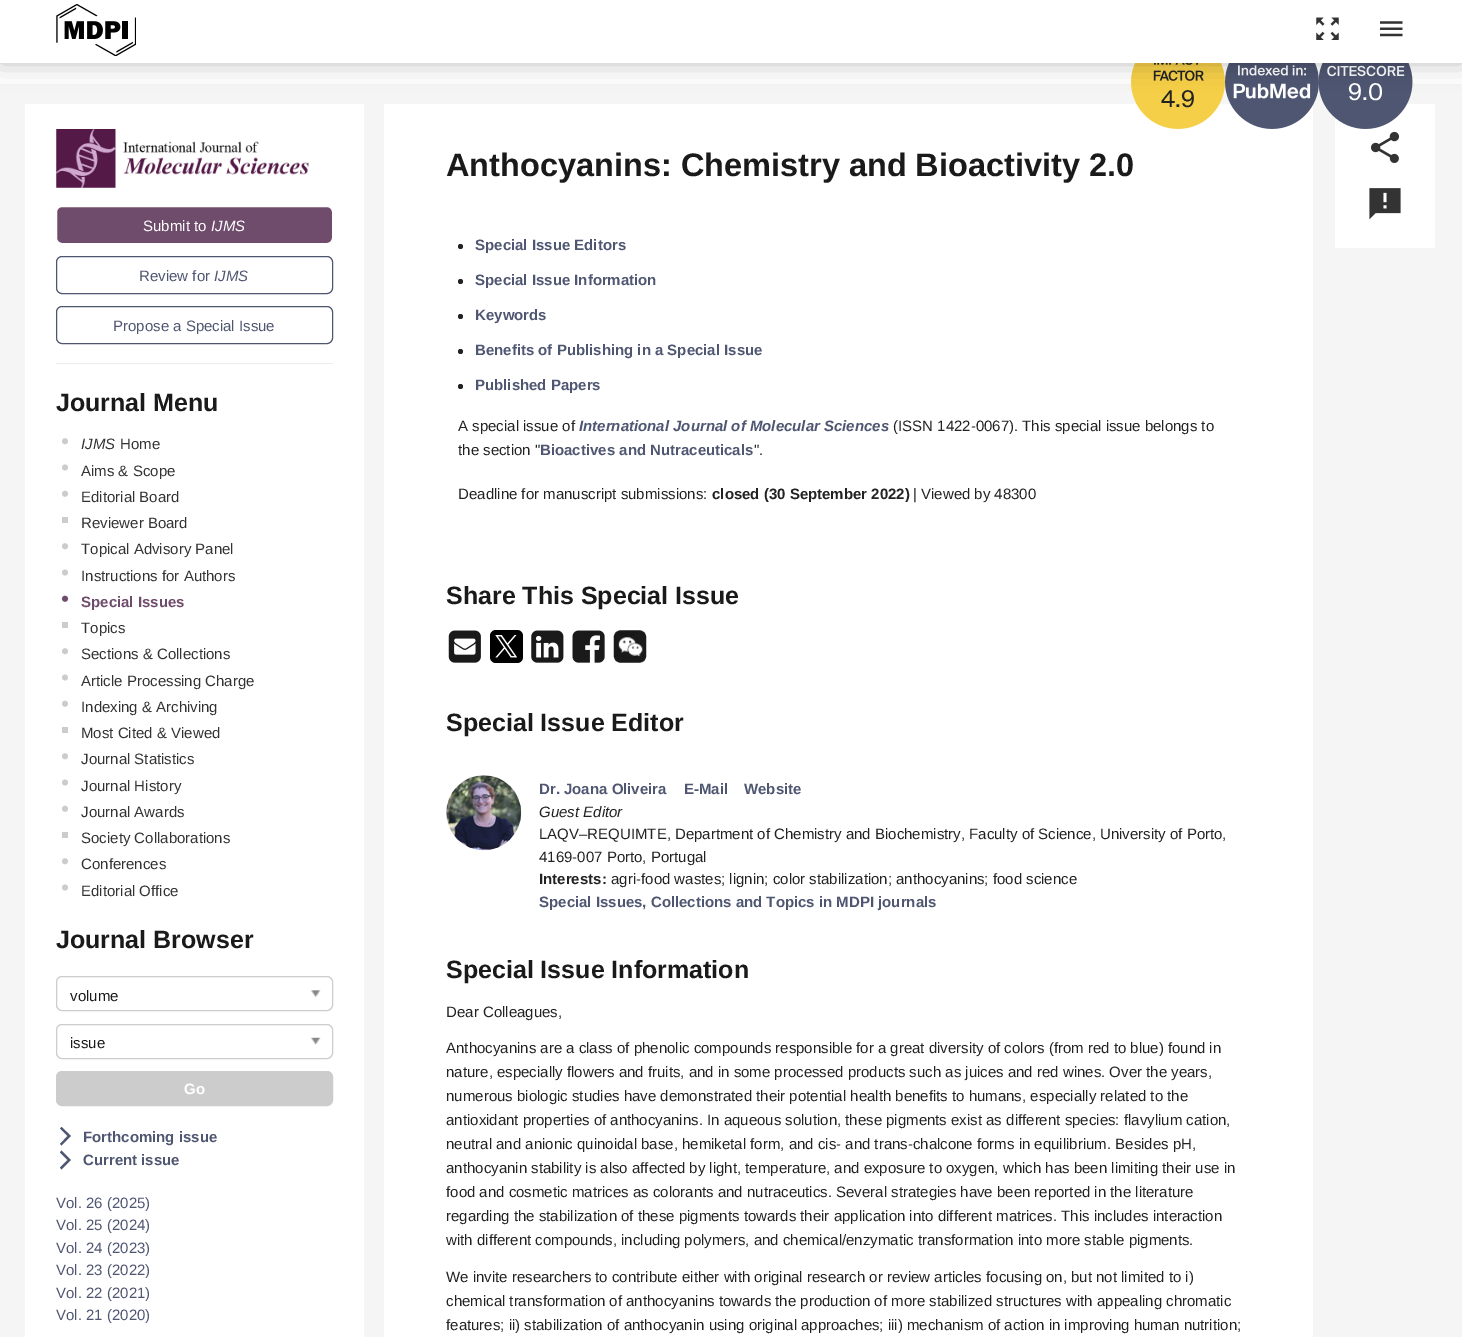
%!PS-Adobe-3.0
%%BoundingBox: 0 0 1462 1337
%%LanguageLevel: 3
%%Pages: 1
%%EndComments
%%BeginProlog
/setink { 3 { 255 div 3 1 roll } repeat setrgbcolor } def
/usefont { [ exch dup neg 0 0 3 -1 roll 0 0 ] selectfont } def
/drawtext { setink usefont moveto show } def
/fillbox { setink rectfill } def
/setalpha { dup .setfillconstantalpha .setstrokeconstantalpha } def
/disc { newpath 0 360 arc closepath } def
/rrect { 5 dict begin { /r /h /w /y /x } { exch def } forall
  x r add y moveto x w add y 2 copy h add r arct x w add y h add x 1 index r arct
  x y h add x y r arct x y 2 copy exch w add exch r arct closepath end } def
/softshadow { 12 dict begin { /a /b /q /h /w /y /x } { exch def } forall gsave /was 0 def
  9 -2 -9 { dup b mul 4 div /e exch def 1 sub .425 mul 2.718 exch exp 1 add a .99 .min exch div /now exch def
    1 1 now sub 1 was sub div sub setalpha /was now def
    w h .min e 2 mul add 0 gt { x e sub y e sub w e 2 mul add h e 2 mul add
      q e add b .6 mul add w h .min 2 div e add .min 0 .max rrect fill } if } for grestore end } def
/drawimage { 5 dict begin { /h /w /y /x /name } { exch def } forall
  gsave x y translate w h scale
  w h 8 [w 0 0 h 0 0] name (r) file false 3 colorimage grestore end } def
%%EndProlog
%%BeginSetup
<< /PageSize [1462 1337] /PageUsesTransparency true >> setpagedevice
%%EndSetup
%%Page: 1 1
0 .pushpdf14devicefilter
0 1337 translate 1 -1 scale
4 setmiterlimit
0 0 1462 1337 245 245 245 fillbox
0 63 1462 21 255 255 255 fillbox
384 104 929 1233 255 255 255 fillbox
(assets/img4.rgb) 1131 63 94 66 drawimage
(assets/img5.rgb) 1225 63 94 66 drawimage
1335 104 100 144 255 255 255 fillbox
(assets/img6.rgb) 1319 63 94 66 drawimage
0 0 0 setink
0 0 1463 63 0 12.5 0.25 softshadow
0 0 1462 63 255 255 255 fillbox
(assets/img1.rgb) 56 4 80 52 drawimage
(assets/img2.rgb) 1316 17 23 23 drawimage
(assets/img3.rgb) 1380 21 23 16 drawimage
(4.9) 1161 107 /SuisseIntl-Regular 23 34 34 34 drawtext
(9.0) 1348 100 /SuisseIntl-Regular 23 255 255 255 drawtext
25 104 339 1233 255 255 255 fillbox
(assets/img7.rgb) 56 129 254 59 drawimage
112 76 108 setink
56.5 206.5 276 37 5.5 rrect gsave fill grestore
255 255 255 setink
stroke
(Submit to) 143 231 /LiberationSans-Regular 15 255 255 255 drawtext
(IJMS) 211 231 /LiberationSans-Italic 15 255 255 255 drawtext
79 86 113 setink
56.5 256.5 276 37 5.5 rrect stroke
(Review for) 139 281 /LiberationSans-Regular 15 79 86 113 drawtext
(IJMS) 214 281 /LiberationSans-Italic 15 79 86 113 drawtext
56.5 306.5 276 37 5.5 rrect stroke
(Propose a Special Issue) 113 331 /LiberationSans-Regular 15 79 86 113 drawtext
56 363 277 1 237 237 237 fillbox
(Journal Menu) 56 411 /LiberationSans-Bold 25 26 26 26 drawtext
(assets/img8.rgb) 62 438 6 7 drawimage
(IJMS) 81 449 /LiberationSans-Italic 15 51 51 51 drawtext
(Home) 120 449 /LiberationSans-Regular 15 51 51 51 drawtext
(assets/img9.rgb) 62 464 6 7 drawimage
(Aims & Scope) 81 476 /LiberationSans-Regular 15 51 51 51 drawtext
(assets/img10.rgb) 62 490 6 7 drawimage
(Editorial Board) 81 502 /LiberationSans-Regular 15 51 51 51 drawtext
62 517 6 6 204 204 204 fillbox
(Reviewer Board) 81 528 /LiberationSans-Regular 15 51 51 51 drawtext
(assets/img8.rgb) 62 543 6 7 drawimage
(Topical Advisory Panel) 81 554 /LiberationSans-Regular 15 51 51 51 drawtext
(assets/img9.rgb) 62 569 6 7 drawimage
(Instructions for Authors) 81 581 /LiberationSans-Regular 15 51 51 51 drawtext
(assets/img11.rgb) 61 595 8 7 drawimage
(Special Issues) 81 607 /LiberationSans-Bold 15 112 76 108 drawtext
62 622 6 6 204 204 204 fillbox
(Topics) 81 633 /LiberationSans-Regular 15 51 51 51 drawtext
(assets/img8.rgb) 62 648 6 7 drawimage
(Sections & Collections) 81 659 /LiberationSans-Regular 15 51 51 51 drawtext
(assets/img9.rgb) 62 674 6 7 drawimage
(Article Processing Charge) 81 686 /LiberationSans-Regular 15 51 51 51 drawtext
(assets/img10.rgb) 62 700 6 7 drawimage
(Indexing & Archiving) 81 712 /LiberationSans-Regular 15 51 51 51 drawtext
62 727 6 6 204 204 204 fillbox
(Most Cited & Viewed) 81 738 /LiberationSans-Regular 15 51 51 51 drawtext
(assets/img8.rgb) 62 753 6 7 drawimage
(Journal Statistics) 81 764 /LiberationSans-Regular 15 51 51 51 drawtext
(assets/img9.rgb) 62 779 6 7 drawimage
(Journal History) 81 791 /LiberationSans-Regular 15 51 51 51 drawtext
(assets/img10.rgb) 62 805 6 7 drawimage
(Journal Awards) 81 817 /LiberationSans-Regular 15 51 51 51 drawtext
62 832 6 6 204 204 204 fillbox
(Society Collaborations) 81 843 /LiberationSans-Regular 15 51 51 51 drawtext
(assets/img8.rgb) 62 858 6 7 drawimage
(Conferences) 81 869 /LiberationSans-Regular 15 51 51 51 drawtext
(assets/img9.rgb) 62 884 6 7 drawimage
(Editorial Office) 81 896 /LiberationSans-Regular 15 51 51 51 drawtext
(Journal Browser) 56 948 /LiberationSans-Bold 25 26 26 26 drawtext
204 204 204 setink
56.5 976.5 276 34 5.5 rrect stroke
(volume) 70 1001 /LiberationSans-Regular 15 26 26 26 drawtext
(assets/img12.rgb) 311 990 10 8 drawimage
204 204 204 setink
56.5 1024.5 276 34 5.5 rrect stroke
(issue) 70 1048 /LiberationSans-Regular 15 26 26 26 drawtext
(assets/img13.rgb) 311 1037 10 8 drawimage
204 204 204 setink
56.5 1071.5 276 34 5.5 rrect gsave fill grestore
stroke
(Go) 184 1094 /LiberationSans-Bold 15 255 255 255 drawtext
79 86 113 setink
60 1144 moveto 61.5 1145.5 lineto 71 1136 lineto 61.5 1127 lineto 60 1128.5 lineto 67.5 1136 lineto closepath 60 1167.5 moveto 61.5 1169.5 lineto 71 1160 lineto 61.5 1150.5 lineto 60 1152.5 lineto 67.5 1160 lineto closepath fill
(Forthcoming issue) 83 1142 /LiberationSans-Bold 15 79 86 113 drawtext
(Current issue) 83 1165 /LiberationSans-Bold 15 79 86 113 drawtext
(Vol. 26 \(2025\)) 56 1208 /LiberationSans-Regular 15 79 86 113 drawtext
(Vol. 25 \(2024\)) 56 1230 /LiberationSans-Regular 15 79 86 113 drawtext
(Vol. 24 \(2023\)) 56 1253 /LiberationSans-Regular 15 79 86 113 drawtext
(Vol. 23 \(2022\)) 56 1275 /LiberationSans-Regular 15 79 86 113 drawtext
(Vol. 22 \(2021\)) 56 1298 /LiberationSans-Regular 15 79 86 113 drawtext
(Vol. 21 \(2020\)) 56 1320 /LiberationSans-Regular 15 79 86 113 drawtext
(Anthocyanins: Chemistry and Bioactivity 2.0) 446 176 /LiberationSans-Bold 32.5 26 26 26 drawtext
34 34 34 setink
460.5 246.5 2.5 disc fill
(Special Issue Editors) 475 250 /LiberationSans-Bold 15 79 86 113 drawtext
34 34 34 setink
460.5 281.5 2.5 disc fill
(Special Issue Information) 475 285 /LiberationSans-Bold 15 79 86 113 drawtext
34 34 34 setink
460.5 316.5 2.5 disc fill
(Keywords) 475 320 /LiberationSans-Bold 15 79 86 113 drawtext
34 34 34 setink
460.5 351.5 2.5 disc fill
(Benefits of Publishing in a Special Issue) 475 355 /LiberationSans-Bold 15 79 86 113 drawtext
34 34 34 setink
460.5 386.5 2.5 disc fill
(Published Papers) 475 390 /LiberationSans-Bold 15 79 86 113 drawtext
(A special issue of) 458 431 /LiberationSans-Regular 15 34 34 34 drawtext
(International Journal of Molecular Sciences) 579 431 /LiberationSans-BoldItalic 15 79 86 113 drawtext
(\(ISSN 1422-0067\). This special issue belongs to) 893 431 /LiberationSans-Regular 15 34 34 34 drawtext
(the section ") 458 455 /LiberationSans-Regular 15 34 34 34 drawtext
(Bioactives and Nutraceuticals) 540 455 /LiberationSans-Bold 15 79 86 113 drawtext
(".) 754 455 /LiberationSans-Regular 15 34 34 34 drawtext
(Deadline for manuscript submissions:) 458 499 /LiberationSans-Regular 15 34 34 34 drawtext
(closed \(30 September 2022\)) 712 499 /LiberationSans-Bold 15 34 34 34 drawtext
(| Viewed by 48300) 913 499 /LiberationSans-Regular 15 34 34 34 drawtext
(Share This Special Issue) 446 604 /LiberationSans-Bold 25 26 26 26 drawtext
(assets/img14.rgb) 448 630 33 33 drawimage
0 0 0 setink
490 630 33 33 6 rrect fill
(assets/img15.rgb) 495 635 23 23 drawimage
(assets/img16.rgb) 531 630 33 33 drawimage
(assets/img17.rgb) 572 630 33 33 drawimage
(assets/img18.rgb) 613 630 34 33 drawimage
(Special Issue Editor) 446 731 /LiberationSans-Bold 25 26 26 26 drawtext
(assets/img19.rgb) 446 775 76 76 drawimage
(Dr. Joana Oliveira) 539 794 /LiberationSans-Bold 15 79 86 113 drawtext
(E-Mail) 684 794 /LiberationSans-Bold 15 79 86 113 drawtext
(Website) 744 794 /LiberationSans-Bold 15 79 86 113 drawtext
(Guest Editor) 539 817 /LiberationSans-Italic 15 34 34 34 drawtext
(LAQV–REQUIMTE, Department of Chemistry and Biochemistry, Faculty of Science, University of Porto,) 539 839 /LiberationSans-Regular 15 34 34 34 drawtext
(4169-007 Porto, Portugal) 539 862 /LiberationSans-Regular 15 34 34 34 drawtext
(Interests:) 539 884 /LiberationSans-Bold 15 34 34 34 drawtext
(agri-food wastes; lignin; color stabilization; anthocyanins; food science) 611 884 /LiberationSans-Regular 15 34 34 34 drawtext
(Special Issues, Collections and Topics in MDPI journals) 539 907 /LiberationSans-Bold 15 79 86 113 drawtext
(Special Issue Information) 446 978 /LiberationSans-Bold 25 26 26 26 drawtext
(Dear Colleagues,) 446 1017 /LiberationSans-Regular 15 34 34 34 drawtext
(Anthocyanins are a class of phenolic compounds responsible for a great diversity of colors \(from red to blue\) found in) 446 1053 /LiberationSans-Regular 15 34 34 34 drawtext
(nature, especially flowers and fruits, and in some processed products such as juices and red wines. Over the years,) 446 1077 /LiberationSans-Regular 15 34 34 34 drawtext
(numerous biologic studies have demonstrated their potential health benefits to humans, especially related to the) 446 1101 /LiberationSans-Regular 15 34 34 34 drawtext
(antioxidant properties of anthocyanins. In aqueous solution, these pigments exist as different species: flavylium cation,) 446 1125 /LiberationSans-Regular 15 34 34 34 drawtext
(neutral and anionic quinoidal base, hemiketal form, and cis- and trans-chalcone forms in equilibrium. Besides pH,) 446 1149 /LiberationSans-Regular 15 34 34 34 drawtext
(anthocyanin stability is also affected by light, temperature, and exposure to oxygen, which has been limiting their use in) 446 1173 /LiberationSans-Regular 15 34 34 34 drawtext
(food and cosmetic matrices as colorants and nutraceutics. Several strategies have been reported in the literature) 446 1197 /LiberationSans-Regular 15 34 34 34 drawtext
(regarding the stabilization of these pigments towards their application into different matrices. This includes interaction) 446 1221 /LiberationSans-Regular 15 34 34 34 drawtext
(with different compounds, including polymers, and chemical/enzymatic transformation into more stable pigments.) 446 1245 /LiberationSans-Regular 15 34 34 34 drawtext
(We invite researchers to contribute either with original research or review articles focusing on, but not limited to i\)) 446 1282 /LiberationSans-Regular 15 34 34 34 drawtext
(chemical transformation of anthocyanins towards the production of more stabilized structures with appealing chromatic) 446 1306 /LiberationSans-Regular 15 34 34 34 drawtext
(features; ii\) stabilization of anthocyanin using original approaches; iii\) mechanism of action in improving human nutrition;) 446 1330 /LiberationSans-Regular 15 34 34 34 drawtext
(assets/img20.rgb) 1370 131 30 32 drawimage
(assets/img21.rgb) 1369 188 32 32 drawimage
.poppdf14devicefilter showpage
%%EOF
